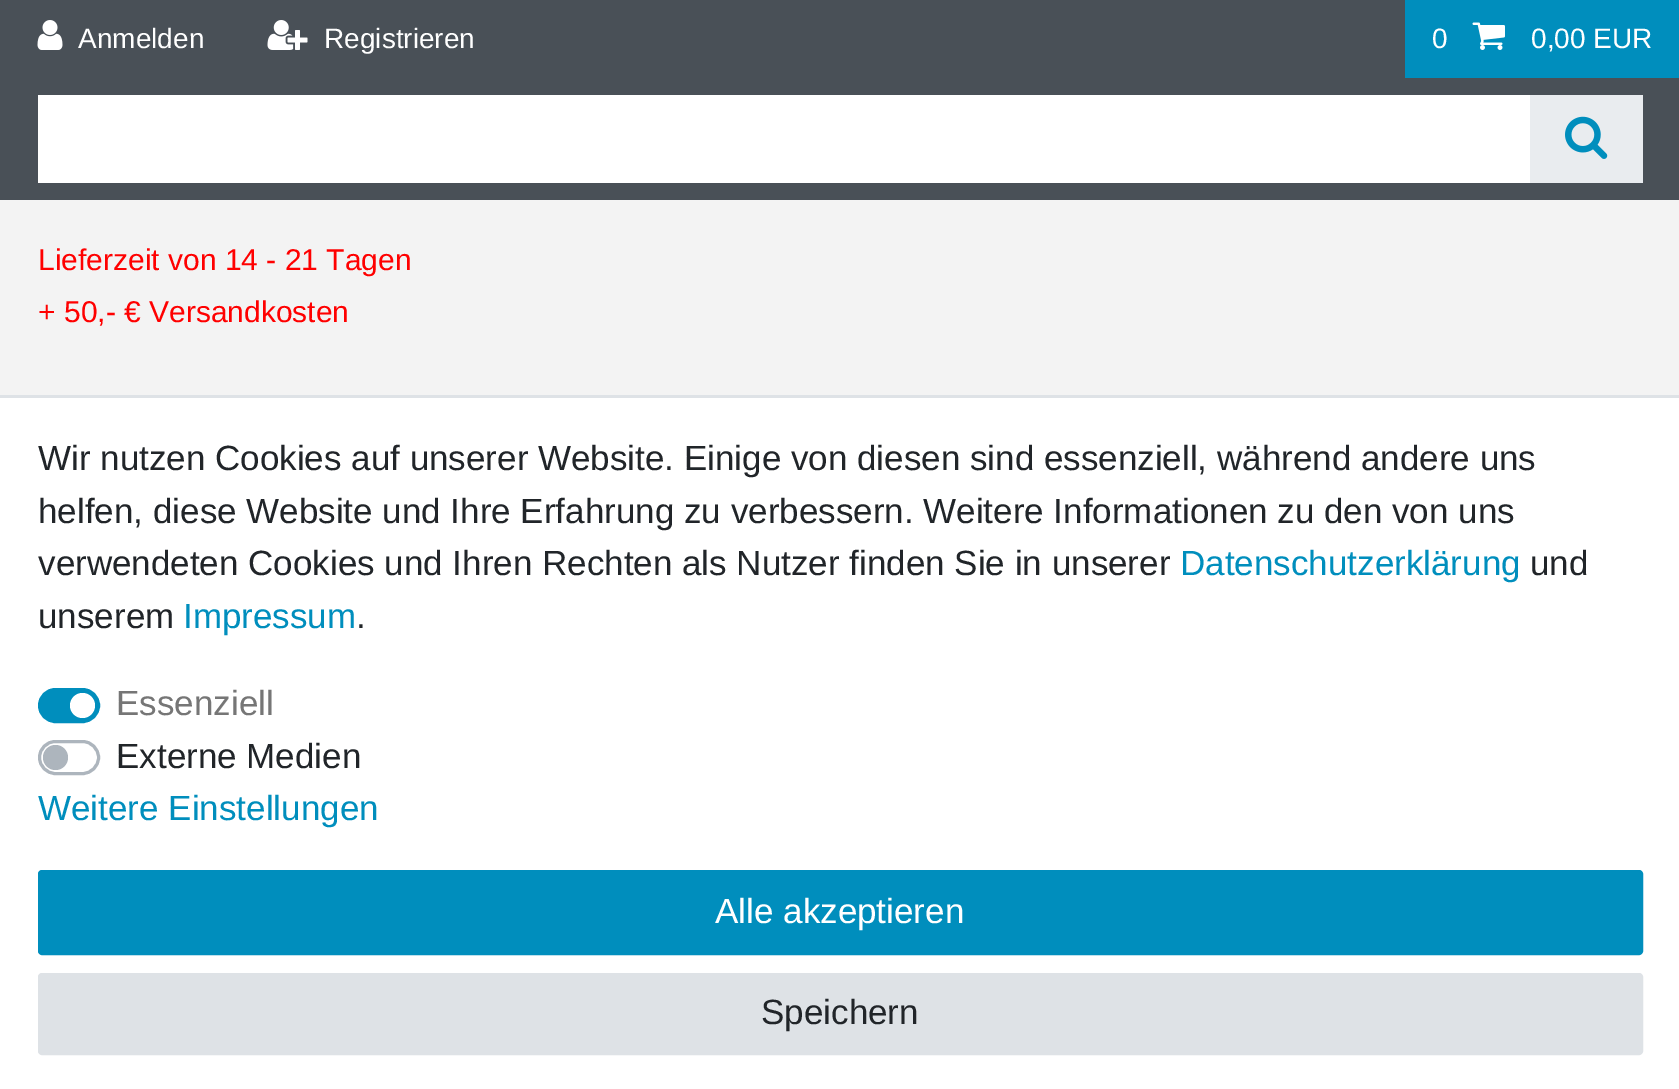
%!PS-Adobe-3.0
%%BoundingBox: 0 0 1679 1089
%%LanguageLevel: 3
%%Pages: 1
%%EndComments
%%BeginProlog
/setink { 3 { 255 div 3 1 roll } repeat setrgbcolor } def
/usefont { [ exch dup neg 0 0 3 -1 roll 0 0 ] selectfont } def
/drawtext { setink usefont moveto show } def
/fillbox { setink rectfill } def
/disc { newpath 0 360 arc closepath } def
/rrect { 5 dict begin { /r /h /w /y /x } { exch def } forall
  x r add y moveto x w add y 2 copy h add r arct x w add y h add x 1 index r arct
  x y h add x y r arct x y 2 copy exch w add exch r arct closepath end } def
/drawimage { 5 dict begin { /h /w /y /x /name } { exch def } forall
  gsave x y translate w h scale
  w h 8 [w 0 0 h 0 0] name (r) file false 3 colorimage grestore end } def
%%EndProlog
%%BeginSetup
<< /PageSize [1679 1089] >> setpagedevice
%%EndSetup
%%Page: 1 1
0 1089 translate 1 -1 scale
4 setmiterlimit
0 0 1679 1089 243 243 243 fillbox
0 0 1679 200 73 80 87 fillbox
(assets/img1.rgb) 37 20 26 30 drawimage
(Anmelden) 78 48 /LiberationSans-Regular 28 255 255 255 drawtext
(assets/img2.rgb) 267 20 41 30 drawimage
(Registrieren) 324 48 /LiberationSans-Regular 28 255 255 255 drawtext
1405 0 274 78 0 142 189 fillbox
(0) 1432 48 /LiberationSans-Regular 28 255 255 255 drawtext
(assets/img3.rgb) 1472 22 33 28 drawimage
(0,00 EUR) 1531 48 /LiberationSans-Regular 28 255 255 255 drawtext
38 95 1492 88 255 255 255 fillbox
1530 95 113 88 233 236 239 fillbox
(assets/img4.rgb) 1565 116 43 43 drawimage
(Lieferzeit von 14 - 21 Tagen) 38 270 /LiberationSans-Regular 30 255 0 0 drawtext
(+ 50,- € Versandkosten) 38 322 /LiberationSans-Regular 30 255 0 0 drawtext
0 398 1679 691 255 255 255 fillbox
0 395 1679 3 222 226 230 fillbox
(Wir nutzen Cookies auf unserer Website. Einige von diesen sind essenziell, während andere uns) 38 470 /LiberationSans-Regular 35 33 37 41 drawtext
(helfen, diese Website und Ihre Erfahrung zu verbessern. Weitere Informationen zu den von uns) 38 523 /LiberationSans-Regular 35 33 37 41 drawtext
(verwendeten Cookies und Ihren Rechten als Nutzer finden Sie in unserer) 38 575 /LiberationSans-Regular 35 33 37 41 drawtext
(Datenschutzerklärung) 1180 575 /LiberationSans-Regular 35 0 142 189 drawtext
(und) 1530 575 /LiberationSans-Regular 35 33 37 41 drawtext
(unserem) 38 628 /LiberationSans-Regular 35 33 37 41 drawtext
(Impressum) 183 628 /LiberationSans-Regular 35 0 142 189 drawtext
(.) 356 628 /LiberationSans-Regular 35 33 37 41 drawtext
0 142 189 setink
39.5 689.5 59 32 16 rrect gsave fill grestore
3 setlinewidth
stroke
(Essenziell) 116 715 /LiberationSans-Regular 35 118 118 118 drawtext
255 255 255 setink
82.5 705.5 12.5 disc fill
173 181 189 setink
39.5 741.5 59 32 16 rrect stroke
(Externe Medien) 116 768 /LiberationSans-Regular 35 33 37 41 drawtext
173 181 189 setink
55.5 757.5 12.5 disc fill
(Weitere Einstellungen) 38 820 /LiberationSans-Regular 35 0 142 189 drawtext
39.5 871.5 1602 82 2.5 rrect gsave fill grestore
stroke
(Alle akzeptieren) 715 923 /LiberationSans-Regular 35 255 255 255 drawtext
222 226 230 setink
39.5 974.5 1602 79 2.5 rrect gsave fill grestore
stroke
(Speichern) 761 1024 /LiberationSans-Regular 35 33 37 41 drawtext
showpage
%%EOF
